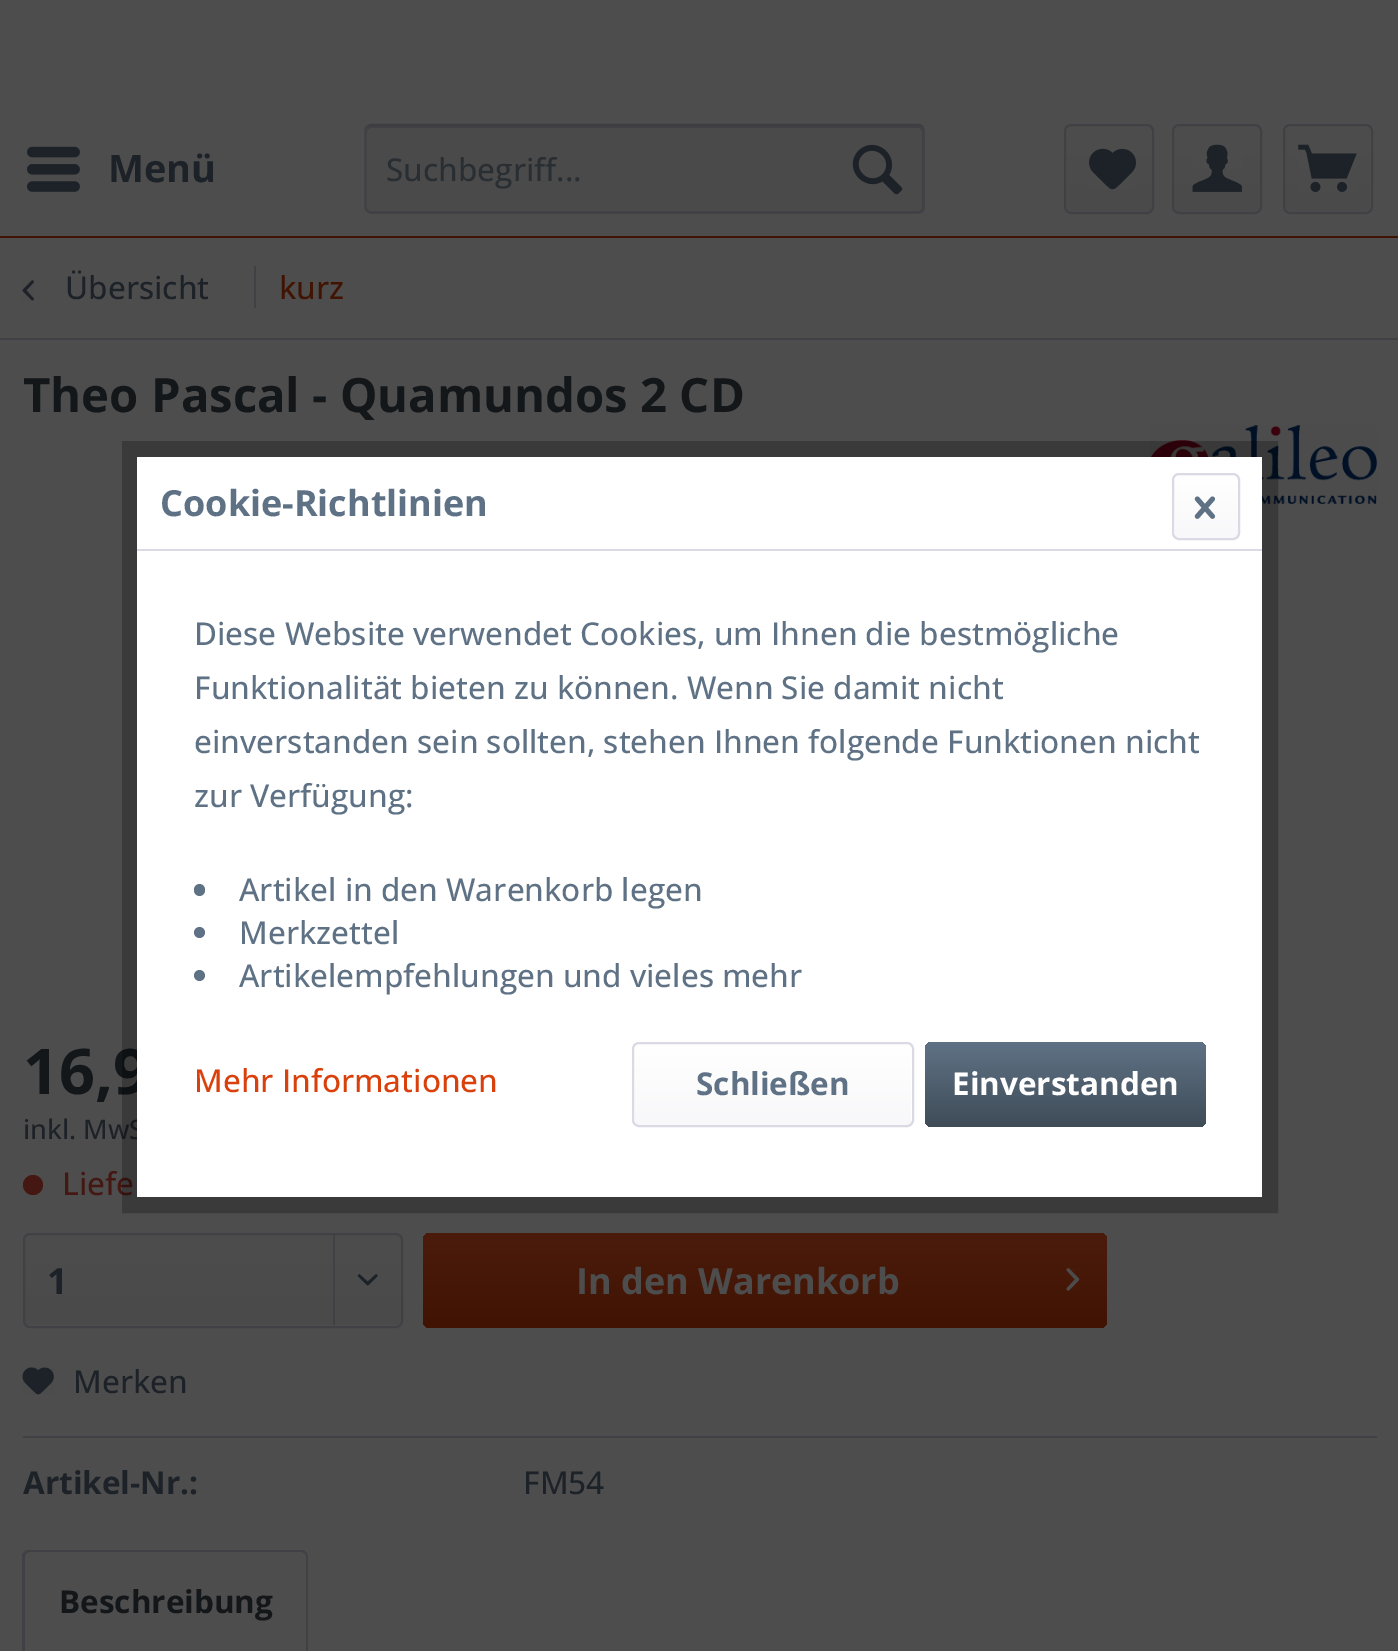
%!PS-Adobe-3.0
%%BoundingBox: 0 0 1398 1651
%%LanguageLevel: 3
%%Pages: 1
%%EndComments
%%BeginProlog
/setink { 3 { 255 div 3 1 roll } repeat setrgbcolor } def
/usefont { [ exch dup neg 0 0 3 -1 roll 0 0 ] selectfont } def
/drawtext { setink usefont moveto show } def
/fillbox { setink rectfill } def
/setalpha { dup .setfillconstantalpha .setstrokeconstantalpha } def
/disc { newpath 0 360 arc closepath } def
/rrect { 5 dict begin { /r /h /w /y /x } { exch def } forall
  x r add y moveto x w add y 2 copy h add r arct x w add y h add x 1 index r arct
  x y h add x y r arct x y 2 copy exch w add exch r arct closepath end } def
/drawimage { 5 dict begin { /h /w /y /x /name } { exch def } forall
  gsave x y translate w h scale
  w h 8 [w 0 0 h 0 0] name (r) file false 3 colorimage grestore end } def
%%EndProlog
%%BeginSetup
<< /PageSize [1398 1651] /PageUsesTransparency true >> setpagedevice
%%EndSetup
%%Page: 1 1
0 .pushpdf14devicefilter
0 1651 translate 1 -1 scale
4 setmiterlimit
0 0 1398 1651 77 77 77 fillbox
0 236 1398 2 65 19 3 fillbox
(assets/img1.rgb) 27 146 53 46 drawimage
(Menü) 108 182 /OpenSans-Bold 38 29 34 40 drawtext
74 74 75 setink
365 124 560 90 7 rrect fill
65 65 69 setink
371 128 moveto 918 128 lineto 920 128 922 130 922 133 curveto 922 210 lineto 923 209 923 208 923 207 curveto 923 131 lineto 923 128 921 126 918 126 curveto 372 126 lineto 369 126 367 128 367 131 curveto 367 133 lineto 367 130 369 128 371 128 curveto closepath fill
61 61 66 setink
2.2 setlinewidth
367.5 126.5 moveto 368.5 125.5 370 125 371 125 curveto 918 125 lineto 919.5 125 921 125.5 922 126.5 curveto stroke
65 65 69 setink
922 126.5 moveto 923 127.5 923.5 129 923.5 130.5 curveto 923.5 207 lineto 923.5 208.5 923 210 922 211 curveto 921 212 919.5 212.5 918 212.5 curveto 371 212.5 lineto 370 212.5 368.5 212 367.5 211 curveto 366 210 365.5 208.5 365.5 207 curveto 365.5 130.5 lineto 365.5 129 366 127.5 367.5 126.5 curveto stroke
(Suchbegriff...) 386 181 /OpenSans-Medium 31.5 41 46 51 drawtext
(assets/img2.rgb) 852 144 51 51 drawimage
gsave 1067 126 85 86 5 rrect clip newpath
<< /ShadingType 2 /ColorSpace /DeviceRGB /Coords [1109 126 1109 212] /Extend [true true] /Function << /FunctionType 2 /Domain [0 1] /C0 [0.302 0.302 0.302] /C1 [0.29 0.29 0.294] /N 1 >> >> shfill grestore
65 65 69 setink
2 setlinewidth
1065 125 88 88 6 rrect stroke
(assets/img3.rgb) 1089 148 48 42 drawimage
gsave 1175 126 85 86 5 rrect clip newpath
<< /ShadingType 2 /ColorSpace /DeviceRGB /Coords [1217 126 1217 212] /Extend [true true] /Function << /FunctionType 2 /Domain [0 1] /C0 [0.302 0.302 0.302] /C1 [0.29 0.29 0.294] /N 1 >> >> shfill grestore
1173 125 88 88 6 rrect stroke
(assets/img4.rgb) 1192 144 50 48 drawimage
gsave 1285 126 85 86 5 rrect clip newpath
<< /ShadingType 2 /ColorSpace /DeviceRGB /Coords [1328 126 1328 212] /Extend [true true] /Function << /FunctionType 2 /Domain [0 1] /C0 [0.302 0.302 0.302] /C1 [0.29 0.29 0.294] /N 1 >> >> shfill grestore
1284 125 88 88 6 rrect stroke
(assets/img5.rgb) 1298 144 59 48 drawimage
0 338 1398 2 65 65 69 fillbox
(assets/img6.rgb) 22 280 12 21 drawimage
(Übersicht) 65 299 /OpenSans-Medium 31.5 29 34 40 drawtext
254 266 2 42 65 65 69 fillbox
(kurz) 279 299 /OpenSans-Medium 31.5 65 19 3 drawtext
(Theo Pascal - Quamundos 2 CD) 23 412 /OpenSans-Bold 47.25 19 23 26 drawtext
(assets/img7.rgb) 1150 425 227 79 drawimage
(16,9) 23 1094 /OpenSans-Bold 63 19 23 26 drawtext
(inkl. MwS) 23 1139 /OpenSans-Medium 27 29 34 40 drawtext
69 23 18 setink
33 1185 10 disc fill
(Liefe) 62 1195 /OpenSans-Medium 31.5 69 23 18 drawtext
gsave 25 1235 376 90 5 rrect clip newpath
<< /ShadingType 2 /ColorSpace /DeviceRGB /Coords [213 1235 213 1325] /Extend [true true] /Function << /FunctionType 2 /Domain [0 1] /C0 [0.302 0.302 0.302] /C1 [0.29 0.29 0.294] /N 1 >> >> shfill grestore
65 65 69 setink
24 1234 378 93 6 rrect stroke
(1) 47 1294 /OpenSans-Bold 36 29 34 40 drawtext
333 1235 2 90 65 65 69 fillbox
(assets/img8.rgb) 357 1274 21 12 drawimage
gsave 423 1233 684 95 7 rrect clip newpath
<< /ShadingType 2 /ColorSpace /DeviceRGB /Coords [765 1233 765 1328] /Extend [true true] /Function << /FunctionType 2 /Domain [0 1] /C0 [0.294 0.11 0.047] /C1 [0.255 0.075 0.012] /N 1 >> >> shfill grestore
(In den Warenkorb) 576 1294 /OpenSans-Bold 36 77 77 77 drawtext
(assets/img9.rgb) 1066 1268 14 23 drawimage
23 1436 1354 2 65 65 69 fillbox
(assets/img10.rgb) 22 1367 32 28 drawimage
(Merken) 73 1393 /OpenSans-Medium 31.5 29 34 40 drawtext
(Artikel-Nr.:) 23 1494 /OpenSans-Bold 31.5 29 34 40 drawtext
(FM54) 523 1494 /OpenSans-Medium 31.5 29 34 40 drawtext
65 65 69 setink
29 1552 moveto 28 1552 27 1553 26 1554 curveto 24 1552 lineto 27 1550 lineto 304 1550 lineto 306 1552 lineto 305 1554 lineto 304 1553 303 1552 302 1552 curveto closepath fill
306 1552 moveto 307 1553 308 1555 308 1557 curveto 308 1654 lineto 306 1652 lineto 306 1557 lineto 306 1556 306 1555 305 1554 curveto closepath fill
22 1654 moveto 22 1555 lineto 24 1552 lineto 26 1554 lineto 25 1557 lineto 25 1651 lineto closepath fill
(Beschreibung) 59 1613 /OpenSans-Bold 31.5 19 23 26 drawtext
0.25 setalpha
0 0 0 setink
16 setlinewidth
130 449 1140 756 rectstroke
1 setalpha
137 457 1125 740 255 255 255 fillbox
137 549 1125 2 218 218 229 fillbox
(Cookie-Richtlinien) 160 516 /OpenSans-Bold 36 95 114 133 drawtext
gsave 1175 475 63 63 5 rrect clip newpath
<< /ShadingType 2 /ColorSpace /DeviceRGB /Coords [1206 475 1206 538] /Extend [true true] /Function << /FunctionType 2 /Domain [0 1] /C0 [1 1 1] /C1 [0.973 0.973 0.98] /N 1 >> >> shfill grestore
218 218 229 setink
2 setlinewidth
1173 474 66 65 6 rrect stroke
(assets/img11.rgb) 1194 496 22 23 drawimage
(Diese Website verwendet Cookies, um Ihnen die bestmögliche) 194 645 /OpenSans-Medium 31.5 95 114 133 drawtext
(Funktionalität bieten zu können. Wenn Sie damit nicht) 194 699 /OpenSans-Medium 31.5 95 114 133 drawtext
(einverstanden sein sollten, stehen Ihnen folgende Funktionen nicht) 194 753 /OpenSans-Medium 31.5 95 114 133 drawtext
(zur Verfügung:) 194 807 /OpenSans-Medium 31.5 95 114 133 drawtext
194 884 11 12 5.5 rrect fill
(Artikel in den Warenkorb legen) 239 901 /OpenSans-Medium 31.5 95 114 133 drawtext
199.5 932.5 5.5 disc fill
(Merkzettel) 239 944 /OpenSans-Medium 31.5 95 114 133 drawtext
199.5 975.5 5.5 disc fill
(Artikelempfehlungen und vieles mehr) 239 987 /OpenSans-Medium 31.5 95 114 133 drawtext
(Mehr Informationen) 194 1092 /OpenSans-Medium 31.5 217 64 11 drawtext
gsave 635 1044 276 81 5 rrect clip newpath
<< /ShadingType 2 /ColorSpace /DeviceRGB /Coords [773 1044 773 1125] /Extend [true true] /Function << /FunctionType 2 /Domain [0 1] /C0 [1 1 1] /C1 [0.973 0.973 0.98] /N 1 >> >> shfill grestore
218 218 229 setink
633 1043 280 83 6 rrect stroke
(Schließen) 696 1095 /OpenSans-Bold 31.5 95 114 133 drawtext
gsave 925 1042 281 85 7 rrect clip newpath
<< /ShadingType 2 /ColorSpace /DeviceRGB /Coords [1065 1042 1065 1127] /Extend [true true] /Function << /FunctionType 2 /Domain [0 1] /C0 [0.373 0.447 0.522] /C1 [0.247 0.298 0.345] /N 1 >> >> shfill grestore
(Einverstanden) 952 1095 /OpenSans-Bold 31.5 255 255 255 drawtext
.poppdf14devicefilter showpage
%%EOF
